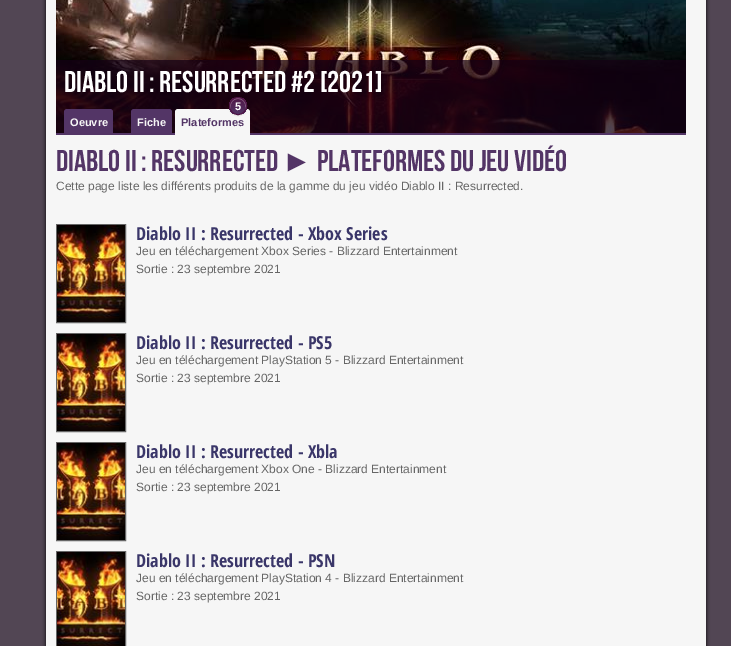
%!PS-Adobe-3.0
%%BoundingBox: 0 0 731 646
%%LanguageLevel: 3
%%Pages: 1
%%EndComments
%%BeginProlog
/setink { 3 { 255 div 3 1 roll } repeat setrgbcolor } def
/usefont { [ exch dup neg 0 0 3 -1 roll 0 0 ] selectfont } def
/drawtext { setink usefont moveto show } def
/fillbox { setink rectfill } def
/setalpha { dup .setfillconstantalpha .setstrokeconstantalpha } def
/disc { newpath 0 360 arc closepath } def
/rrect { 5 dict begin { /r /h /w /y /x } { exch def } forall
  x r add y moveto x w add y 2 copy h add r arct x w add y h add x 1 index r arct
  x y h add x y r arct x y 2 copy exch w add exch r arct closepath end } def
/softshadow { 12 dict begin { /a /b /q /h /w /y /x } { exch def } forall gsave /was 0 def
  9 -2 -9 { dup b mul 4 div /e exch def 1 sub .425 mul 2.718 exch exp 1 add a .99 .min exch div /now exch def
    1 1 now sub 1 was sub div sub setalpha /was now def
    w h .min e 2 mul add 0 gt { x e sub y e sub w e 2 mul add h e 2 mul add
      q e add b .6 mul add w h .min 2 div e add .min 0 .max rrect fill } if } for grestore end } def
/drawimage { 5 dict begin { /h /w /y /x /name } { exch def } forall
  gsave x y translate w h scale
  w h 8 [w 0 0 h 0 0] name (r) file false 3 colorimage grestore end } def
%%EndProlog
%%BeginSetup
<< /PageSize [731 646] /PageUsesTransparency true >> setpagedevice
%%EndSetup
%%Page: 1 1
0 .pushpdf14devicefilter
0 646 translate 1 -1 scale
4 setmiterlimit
0 0 731 646 82 70 84 fillbox
0 0 0 setink
46 -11 660 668 5 2 1 softshadow
46 0 660 646 246 246 246 fillbox
(assets/img1.rgb) 56 0 630 133 drawimage
0.7 setalpha
56 60 630 73 20 0 20 fillbox
0.1 setalpha
56 60 444 46 20 0 20 fillbox
1 setalpha
(Diablo II : Resurrected #2 [2021]) 64 92 /BebasNeue-Regular 30 255 255 255 drawtext
0.1 setalpha
72 106 574 27 20 0 20 fillbox
1 setalpha
56 133 630 2 83 53 102 fillbox
67 109 moveto 110 109 lineto 111.5 109 113 110.5 113 112 curveto 113 135 lineto 64 135 lineto 64 112 lineto 64 110.5 65.5 109 67 109 curveto closepath fill
(Oeuvre) 70 126 /LiberationSans-Bold 11 246 246 246 drawtext
83 53 102 setink
134 109 moveto 169 109 lineto 170.5 109 172 110.5 172 112 curveto 172 135 lineto 131 135 lineto 131 112 lineto 131 110.5 132.5 109 134 109 curveto closepath fill
(Fiche) 137 126 /LiberationSans-Bold 11 246 246 246 drawtext
178 109 moveto 247 109 lineto 248.5 109 250 110.5 250 112 curveto 250 135 lineto 175 135 lineto 175 112 lineto 175 110.5 176.5 109 178 109 curveto closepath fill
0 0 0 setink
229 98 18 18 9 0.5 0.08 softshadow
gsave
229 97 18 18 9 rrect clip newpath
gsave 229 98 moveto 247 98 lineto 247 114 lineto 229 114 lineto closepath clip newpath
<< /ShadingType 2 /ColorSpace /DeviceRGB /Coords [238 114 238 98] /Extend [true true] /Function << /FunctionType 2 /Domain [0 1] /C0 [0.325 0.208 0.4] /C1 [0.314 0.082 0.275] /N 1 >> >> shfill grestore
grestore
0.3 setalpha
255 255 255 setink
238 99 moveto 244 99 246.5 105 245 109.5 curveto 246 107.5 246.5 105 245.5 103 curveto 241 92.5 226 100 231 109.5 curveto 229.5 105 232 99 238 99 curveto closepath fill
1 setalpha
80 21 70 setink
238 106 8.5 disc stroke
(5) 235 110 /LiberationSans-Bold 11 255 255 255 drawtext
(Plateformes) 181 126 /LiberationSans-Bold 11 83 53 102 drawtext
(Diablo II : Resurrected) 56 171 /BebasNeue-Regular 30 83 53 102 drawtext
(►) 282 171 /LiberationSans-Regular 30 83 53 102 drawtext
(Plateformes du jeu vidéo) 317 171 /BebasNeue-Regular 30 83 53 102 drawtext
(Cette page liste les différents produits de la gamme du jeu vidéo Diablo II : Resurrected.) 56 190 /LiberationSans-Regular 12 102 102 102 drawtext
56.5 224.5 69 98 rectstroke
(assets/img2.rgb) 57 225 68 97 drawimage
(Diablo II : Resurrected - Xbox Series) 136 240 /OpenSansCondensed-Bold 18 58 54 105 drawtext
(Jeu en téléchargement Xbox Series - Blizzard Entertainment) 136 255 /LiberationSans-Regular 12 102 102 102 drawtext
(Sortie : 23 septembre 2021) 136 273 /LiberationSans-Regular 12 102 102 102 drawtext
56.5 333.5 69 98 rectstroke
(assets/img3.rgb) 57 334 68 97 drawimage
(Diablo II : Resurrected - PS5) 136 349 /OpenSansCondensed-Bold 18 58 54 105 drawtext
(Jeu en téléchargement PlayStation 5 - Blizzard Entertainment) 136 364 /LiberationSans-Regular 12 102 102 102 drawtext
(Sortie : 23 septembre 2021) 136 382 /LiberationSans-Regular 12 102 102 102 drawtext
56.5 442.5 69 98 rectstroke
(assets/img3.rgb) 57 443 68 97 drawimage
(Diablo II : Resurrected - Xbla) 136 458 /OpenSansCondensed-Bold 18 58 54 105 drawtext
(Jeu en téléchargement Xbox One - Blizzard Entertainment) 136 473 /LiberationSans-Regular 12 102 102 102 drawtext
(Sortie : 23 septembre 2021) 136 491 /LiberationSans-Regular 12 102 102 102 drawtext
56.5 551.5 69 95 rectstroke
(assets/img4.rgb) 57 552 68 94 drawimage
(Diablo II : Resurrected - PSN) 136 567 /OpenSansCondensed-Bold 18 58 54 105 drawtext
(Jeu en téléchargement PlayStation 4 - Blizzard Entertainment) 136 582 /LiberationSans-Regular 12 102 102 102 drawtext
(Sortie : 23 septembre 2021) 136 600 /LiberationSans-Regular 12 102 102 102 drawtext
.poppdf14devicefilter showpage
%%EOF
